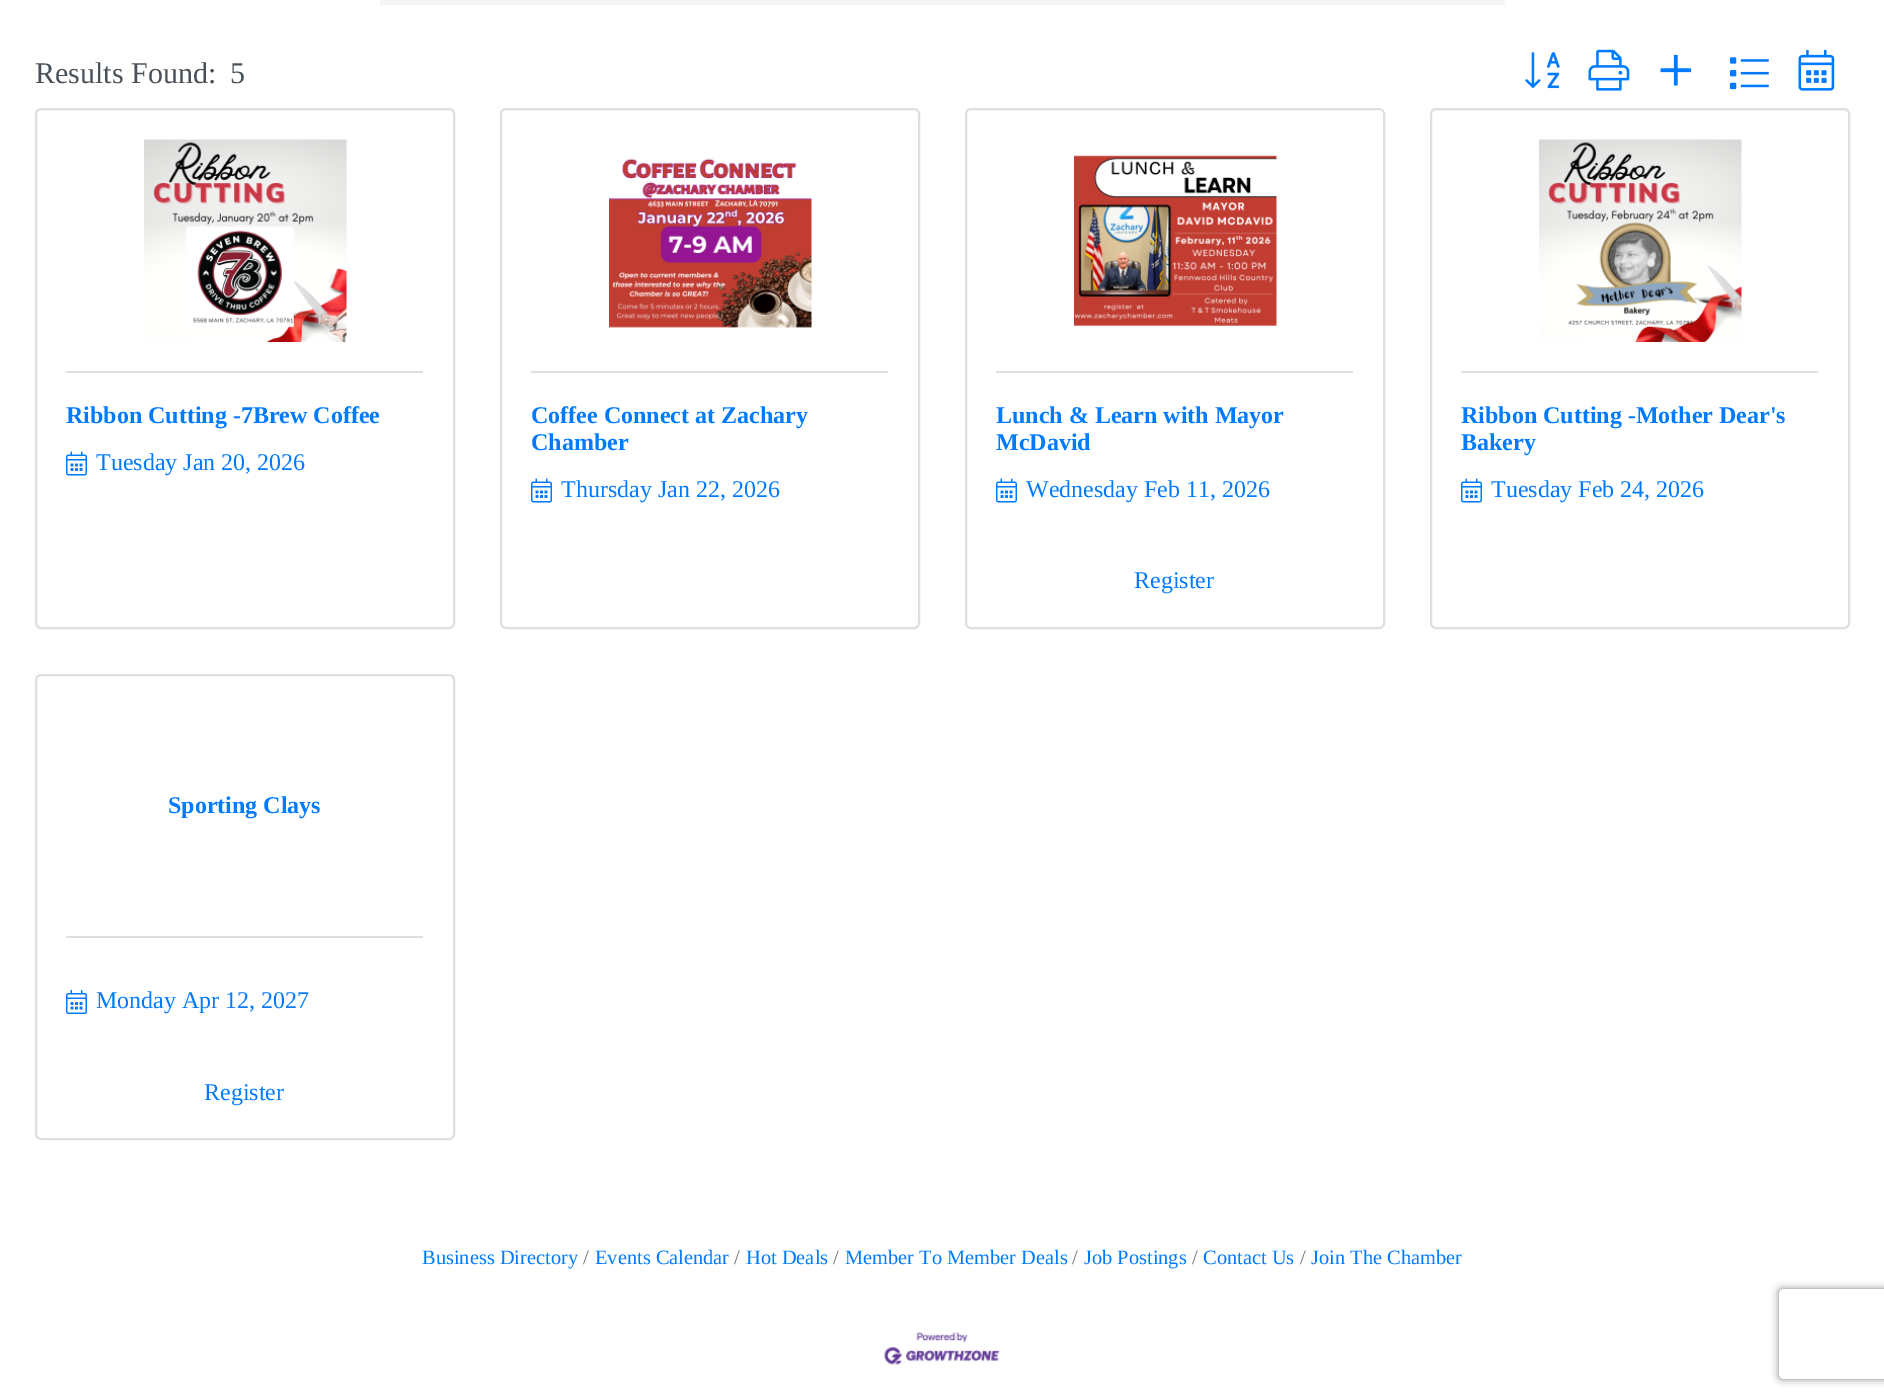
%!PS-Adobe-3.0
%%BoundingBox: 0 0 1884 1399
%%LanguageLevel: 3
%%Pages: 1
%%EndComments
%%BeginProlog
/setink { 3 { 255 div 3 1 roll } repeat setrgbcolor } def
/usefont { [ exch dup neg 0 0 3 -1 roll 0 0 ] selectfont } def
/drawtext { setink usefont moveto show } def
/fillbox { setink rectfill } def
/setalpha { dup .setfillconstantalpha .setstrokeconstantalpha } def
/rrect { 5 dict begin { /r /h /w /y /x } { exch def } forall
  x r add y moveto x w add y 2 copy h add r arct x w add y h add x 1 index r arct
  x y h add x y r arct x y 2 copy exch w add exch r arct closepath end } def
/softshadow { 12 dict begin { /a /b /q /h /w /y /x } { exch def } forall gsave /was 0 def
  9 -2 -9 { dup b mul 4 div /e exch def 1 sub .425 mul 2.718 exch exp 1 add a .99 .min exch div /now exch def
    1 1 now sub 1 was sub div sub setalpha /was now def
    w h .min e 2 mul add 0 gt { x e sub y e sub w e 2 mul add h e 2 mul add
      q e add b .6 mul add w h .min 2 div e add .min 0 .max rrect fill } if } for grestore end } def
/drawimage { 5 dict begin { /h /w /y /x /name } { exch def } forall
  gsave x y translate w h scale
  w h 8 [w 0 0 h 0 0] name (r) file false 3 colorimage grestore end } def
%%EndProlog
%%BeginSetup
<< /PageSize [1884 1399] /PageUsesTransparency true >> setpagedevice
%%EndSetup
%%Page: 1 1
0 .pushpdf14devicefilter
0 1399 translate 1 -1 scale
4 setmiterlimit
0 0 1884 1399 255 255 255 fillbox
380 0 1125 5 245 245 245 fillbox
(Results Found:) 35 83 /LiberationSerif-Regular 30 73 80 87 drawtext
(5) 230 83 /LiberationSerif-Regular 30 73 80 87 drawtext
(assets/img1.rgb) 1525 52 35 37 drawimage
(assets/img2.rgb) 1588 49 42 42 drawimage
(assets/img3.rgb) 1660 54 32 32 drawimage
(assets/img4.rgb) 1729 57 40 33 drawimage
(assets/img5.rgb) 1798 49 37 42 drawimage
223 223 223 setink
2 setlinewidth
36 109 418 519 5 rrect stroke
66 371 357 2 223 223 223 fillbox
(assets/img6.rgb) 144 139 203 203 drawimage
(Ribbon Cutting -7Brew Coffee) 66 423 /LiberationSerif-Bold 24 0 123 255 drawtext
(assets/img7.rgb) 66 451 21 25 drawimage
(Tuesday Jan 20, 2026) 96 470 /LiberationSerif-Regular 24 0 123 255 drawtext
223 223 223 setink
501 109 418 519 5 rrect stroke
531 371 357 2 223 223 223 fillbox
(assets/img8.rgb) 609 158 203 170 drawimage
(Coffee Connect at Zachary) 531 423 /LiberationSerif-Bold 24 0 123 255 drawtext
(Chamber) 531 450 /LiberationSerif-Bold 24 0 123 255 drawtext
(assets/img7.rgb) 531 478 21 25 drawimage
(Thursday Jan 22, 2026) 561 497 /LiberationSerif-Regular 24 0 123 255 drawtext
223 223 223 setink
966 109 418 519 5 rrect stroke
996 371 357 2 223 223 223 fillbox
(assets/img9.rgb) 1074 155 203 171 drawimage
(Lunch & Learn with Mayor) 996 423 /LiberationSerif-Bold 24 0 123 255 drawtext
(McDavid) 996 450 /LiberationSerif-Bold 24 0 123 255 drawtext
(assets/img7.rgb) 996 478 21 25 drawimage
(Wednesday Feb 11, 2026) 1026 497 /LiberationSerif-Regular 24 0 123 255 drawtext
(Register) 1134 588 /LiberationSerif-Regular 24 0 123 255 drawtext
223 223 223 setink
1431 109 418 519 5 rrect stroke
1461 371 357 2 223 223 223 fillbox
(assets/img10.rgb) 1539 139 203 203 drawimage
(Ribbon Cutting -Mother Dear's) 1461 423 /LiberationSerif-Bold 24 0 123 255 drawtext
(Bakery) 1461 450 /LiberationSerif-Bold 24 0 123 255 drawtext
(assets/img7.rgb) 1461 478 21 25 drawimage
(Tuesday Feb 24, 2026) 1491 497 /LiberationSerif-Regular 24 0 123 255 drawtext
223 223 223 setink
36 675 418 464 5 rrect stroke
66 936 357 2 223 223 223 fillbox
(Sporting Clays) 168 813 /LiberationSerif-Bold 24 0 123 255 drawtext
(assets/img11.rgb) 66 990 21 24 drawimage
(Monday Apr 12, 2027) 96 1008 /LiberationSerif-Regular 24 0 123 255 drawtext
(Register) 204 1100 /LiberationSerif-Regular 24 0 123 255 drawtext
(Business Directory) 422 1264 /LiberationSerif-Regular 20.4 0 123 255 drawtext
(/) 583 1264 /LiberationSerif-Regular 20.4 108 117 125 drawtext
(Events Calendar) 595 1264 /LiberationSerif-Regular 20.4 0 123 255 drawtext
(/) 734 1264 /LiberationSerif-Regular 20.4 108 117 125 drawtext
(Hot Deals) 746 1264 /LiberationSerif-Regular 20.4 0 123 255 drawtext
(/) 833 1264 /LiberationSerif-Regular 20.4 108 117 125 drawtext
(Member To Member Deals) 845 1264 /LiberationSerif-Regular 20.4 0 123 255 drawtext
(/) 1072 1264 /LiberationSerif-Regular 20.4 108 117 125 drawtext
(Job Postings) 1084 1264 /LiberationSerif-Regular 20.4 0 123 255 drawtext
(/) 1192 1264 /LiberationSerif-Regular 20.4 108 117 125 drawtext
(Contact Us) 1203 1264 /LiberationSerif-Regular 20.4 0 123 255 drawtext
(/) 1300 1264 /LiberationSerif-Regular 20.4 108 117 125 drawtext
(Join The Chamber) 1311 1264 /LiberationSerif-Regular 20.4 0 123 255 drawtext
(assets/img12.rgb) 884 1332 116 33 drawimage
gsave
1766 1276 moveto 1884 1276 lineto 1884 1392 lineto 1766 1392 lineto closepath 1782 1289 moveto 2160 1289 lineto 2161.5 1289 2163 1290.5 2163 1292 curveto 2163 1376 lineto 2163 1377.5 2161.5 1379 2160 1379 curveto 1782 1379 lineto 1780.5 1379 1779 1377.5 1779 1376 curveto 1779 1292 lineto 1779 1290.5 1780.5 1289 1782 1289 curveto closepath eoclip newpath
128 128 128 setink
1779 1289 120 90 3 4 1 softshadow
grestore
.poppdf14devicefilter showpage
%%EOF
